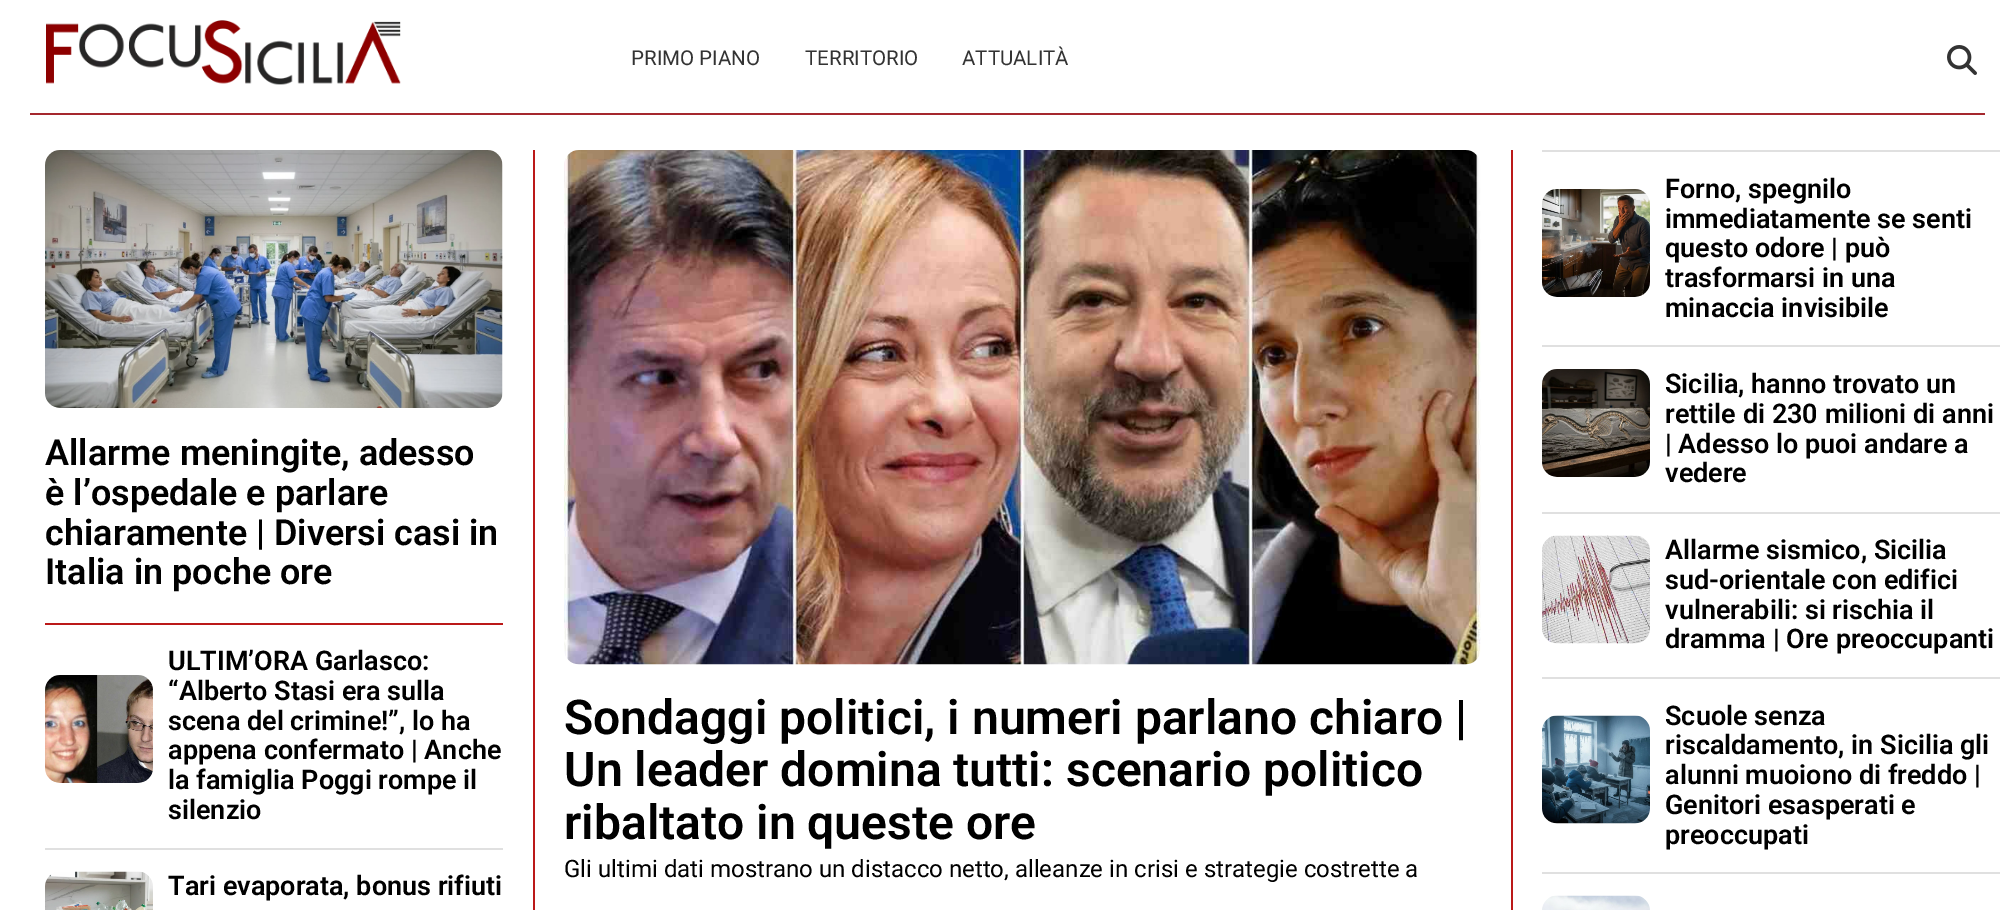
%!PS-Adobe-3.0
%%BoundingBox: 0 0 2014 910
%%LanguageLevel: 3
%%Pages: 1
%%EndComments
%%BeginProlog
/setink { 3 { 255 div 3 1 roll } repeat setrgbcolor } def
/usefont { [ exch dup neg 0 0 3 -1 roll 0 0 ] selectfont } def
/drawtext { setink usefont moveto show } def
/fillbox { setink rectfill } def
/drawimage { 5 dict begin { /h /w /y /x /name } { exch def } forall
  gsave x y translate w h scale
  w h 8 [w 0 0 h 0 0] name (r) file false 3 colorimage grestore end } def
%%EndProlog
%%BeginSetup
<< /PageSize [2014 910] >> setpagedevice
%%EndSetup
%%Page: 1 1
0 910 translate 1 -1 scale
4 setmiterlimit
0 0 2014 910 255 255 255 fillbox
30 113 1955 2 165 40 46 fillbox
(assets/img1.rgb) 46 20 355 65 drawimage
(PRIMO PIANO) 631 65 /Roboto-Regular 20.5 51 51 51 drawtext
(TERRITORIO) 805 65 /Roboto-Regular 20.5 51 51 51 drawtext
(ATTUALITÀ) 962 65 /Roboto-Regular 20.5 51 51 51 drawtext
(assets/img2.rgb) 1947 45 30 30 drawimage
533 150 2 760 187 25 25 fillbox
45 623 458 2 187 25 25 fillbox
(assets/img3.rgb) 45 150 458 258 drawimage
(Allarme meningite, adesso) 45 465 /Roboto-SemiBold 36 0 0 0 drawtext
(è l’ospedale e parlare) 45 505 /Roboto-SemiBold 36 0 0 0 drawtext
(chiaramente | Diversi casi in) 45 545 /Roboto-SemiBold 36 0 0 0 drawtext
(Italia in poche ore) 45 584 /Roboto-SemiBold 36 0 0 0 drawtext
(assets/img4.rgb) 45 675 108 108 drawimage
(ULTIM’ORA Garlasco:) 168 670 /Roboto-SemiBold 27 0 0 0 drawtext
(“Alberto Stasi era sulla) 168 700 /Roboto-SemiBold 27 0 0 0 drawtext
(scena del crimine!”, lo ha) 168 730 /Roboto-SemiBold 27 0 0 0 drawtext
(appena confermato | Anche) 168 759 /Roboto-SemiBold 27 0 0 0 drawtext
(la famiglia Poggi rompe il) 168 789 /Roboto-SemiBold 27 0 0 0 drawtext
(silenzio) 168 819 /Roboto-SemiBold 27 0 0 0 drawtext
45 848 458 2 224 224 224 fillbox
(assets/img5.rgb) 45 871 108 39 drawimage
(Tari evaporata, bonus rifiuti) 168 895 /Roboto-SemiBold 27 0 0 0 drawtext
(assets/img6.rgb) 564 150 917 515 drawimage
(Sondaggi politici, i numeri parlano chiaro |) 564 734 /Roboto-SemiBold 48 0 0 0 drawtext
(Un leader domina tutti: scenario politico) 564 786 /Roboto-SemiBold 48 0 0 0 drawtext
(ribaltato in queste ore) 564 839 /Roboto-SemiBold 48 0 0 0 drawtext
(Gli ultimi dati mostrano un distacco netto, alleanze in crisi e strategie costrette a) 564 877 /Roboto-Regular 24 0 0 0 drawtext
1511 150 2 760 187 25 25 fillbox
1542 150 458 2 224 224 224 fillbox
(assets/img7.rgb) 1542 189 108 108 drawimage
(Forno, spegnilo) 1665 198 /Roboto-SemiBold 27 0 0 0 drawtext
(immediatamente se senti) 1665 228 /Roboto-SemiBold 27 0 0 0 drawtext
(questo odore | può) 1665 257 /Roboto-SemiBold 27 0 0 0 drawtext
(trasformarsi in una) 1665 287 /Roboto-SemiBold 27 0 0 0 drawtext
(minaccia invisibile) 1665 317 /Roboto-SemiBold 27 0 0 0 drawtext
1542 345 458 2 224 224 224 fillbox
(assets/img8.rgb) 1542 369 108 108 drawimage
(Sicilia, hanno trovato un) 1665 393 /Roboto-SemiBold 27 0 0 0 drawtext
(rettile di 230 milioni di anni) 1665 423 /Roboto-SemiBold 27 0 0 0 drawtext
(| Adesso lo puoi andare a) 1665 453 /Roboto-SemiBold 27 0 0 0 drawtext
(vedere) 1665 482 /Roboto-SemiBold 27 0 0 0 drawtext
1542 512 458 2 224 224 224 fillbox
(assets/img9.rgb) 1542 535 108 109 drawimage
(Allarme sismico, Sicilia) 1665 559 /Roboto-SemiBold 27 0 0 0 drawtext
(sud-orientale con edifici) 1665 589 /Roboto-SemiBold 27 0 0 0 drawtext
(vulnerabili: si rischia il) 1665 619 /Roboto-SemiBold 27 0 0 0 drawtext
(dramma | Ore preoccupanti) 1665 648 /Roboto-SemiBold 27 0 0 0 drawtext
1542 677 458 2 224 224 224 fillbox
(assets/img10.rgb) 1542 715 108 109 drawimage
(Scuole senza) 1665 725 /Roboto-SemiBold 27 0 0 0 drawtext
(riscaldamento, in Sicilia gli) 1665 754 /Roboto-SemiBold 27 0 0 0 drawtext
(alunni muoiono di freddo |) 1665 784 /Roboto-SemiBold 27 0 0 0 drawtext
(Genitori esasperati e) 1665 814 /Roboto-SemiBold 27 0 0 0 drawtext
(preoccupati) 1665 844 /Roboto-SemiBold 27 0 0 0 drawtext
1542 872 458 2 224 224 224 fillbox
(assets/img11.rgb) 1542 895 108 15 drawimage
showpage
%%EOF
